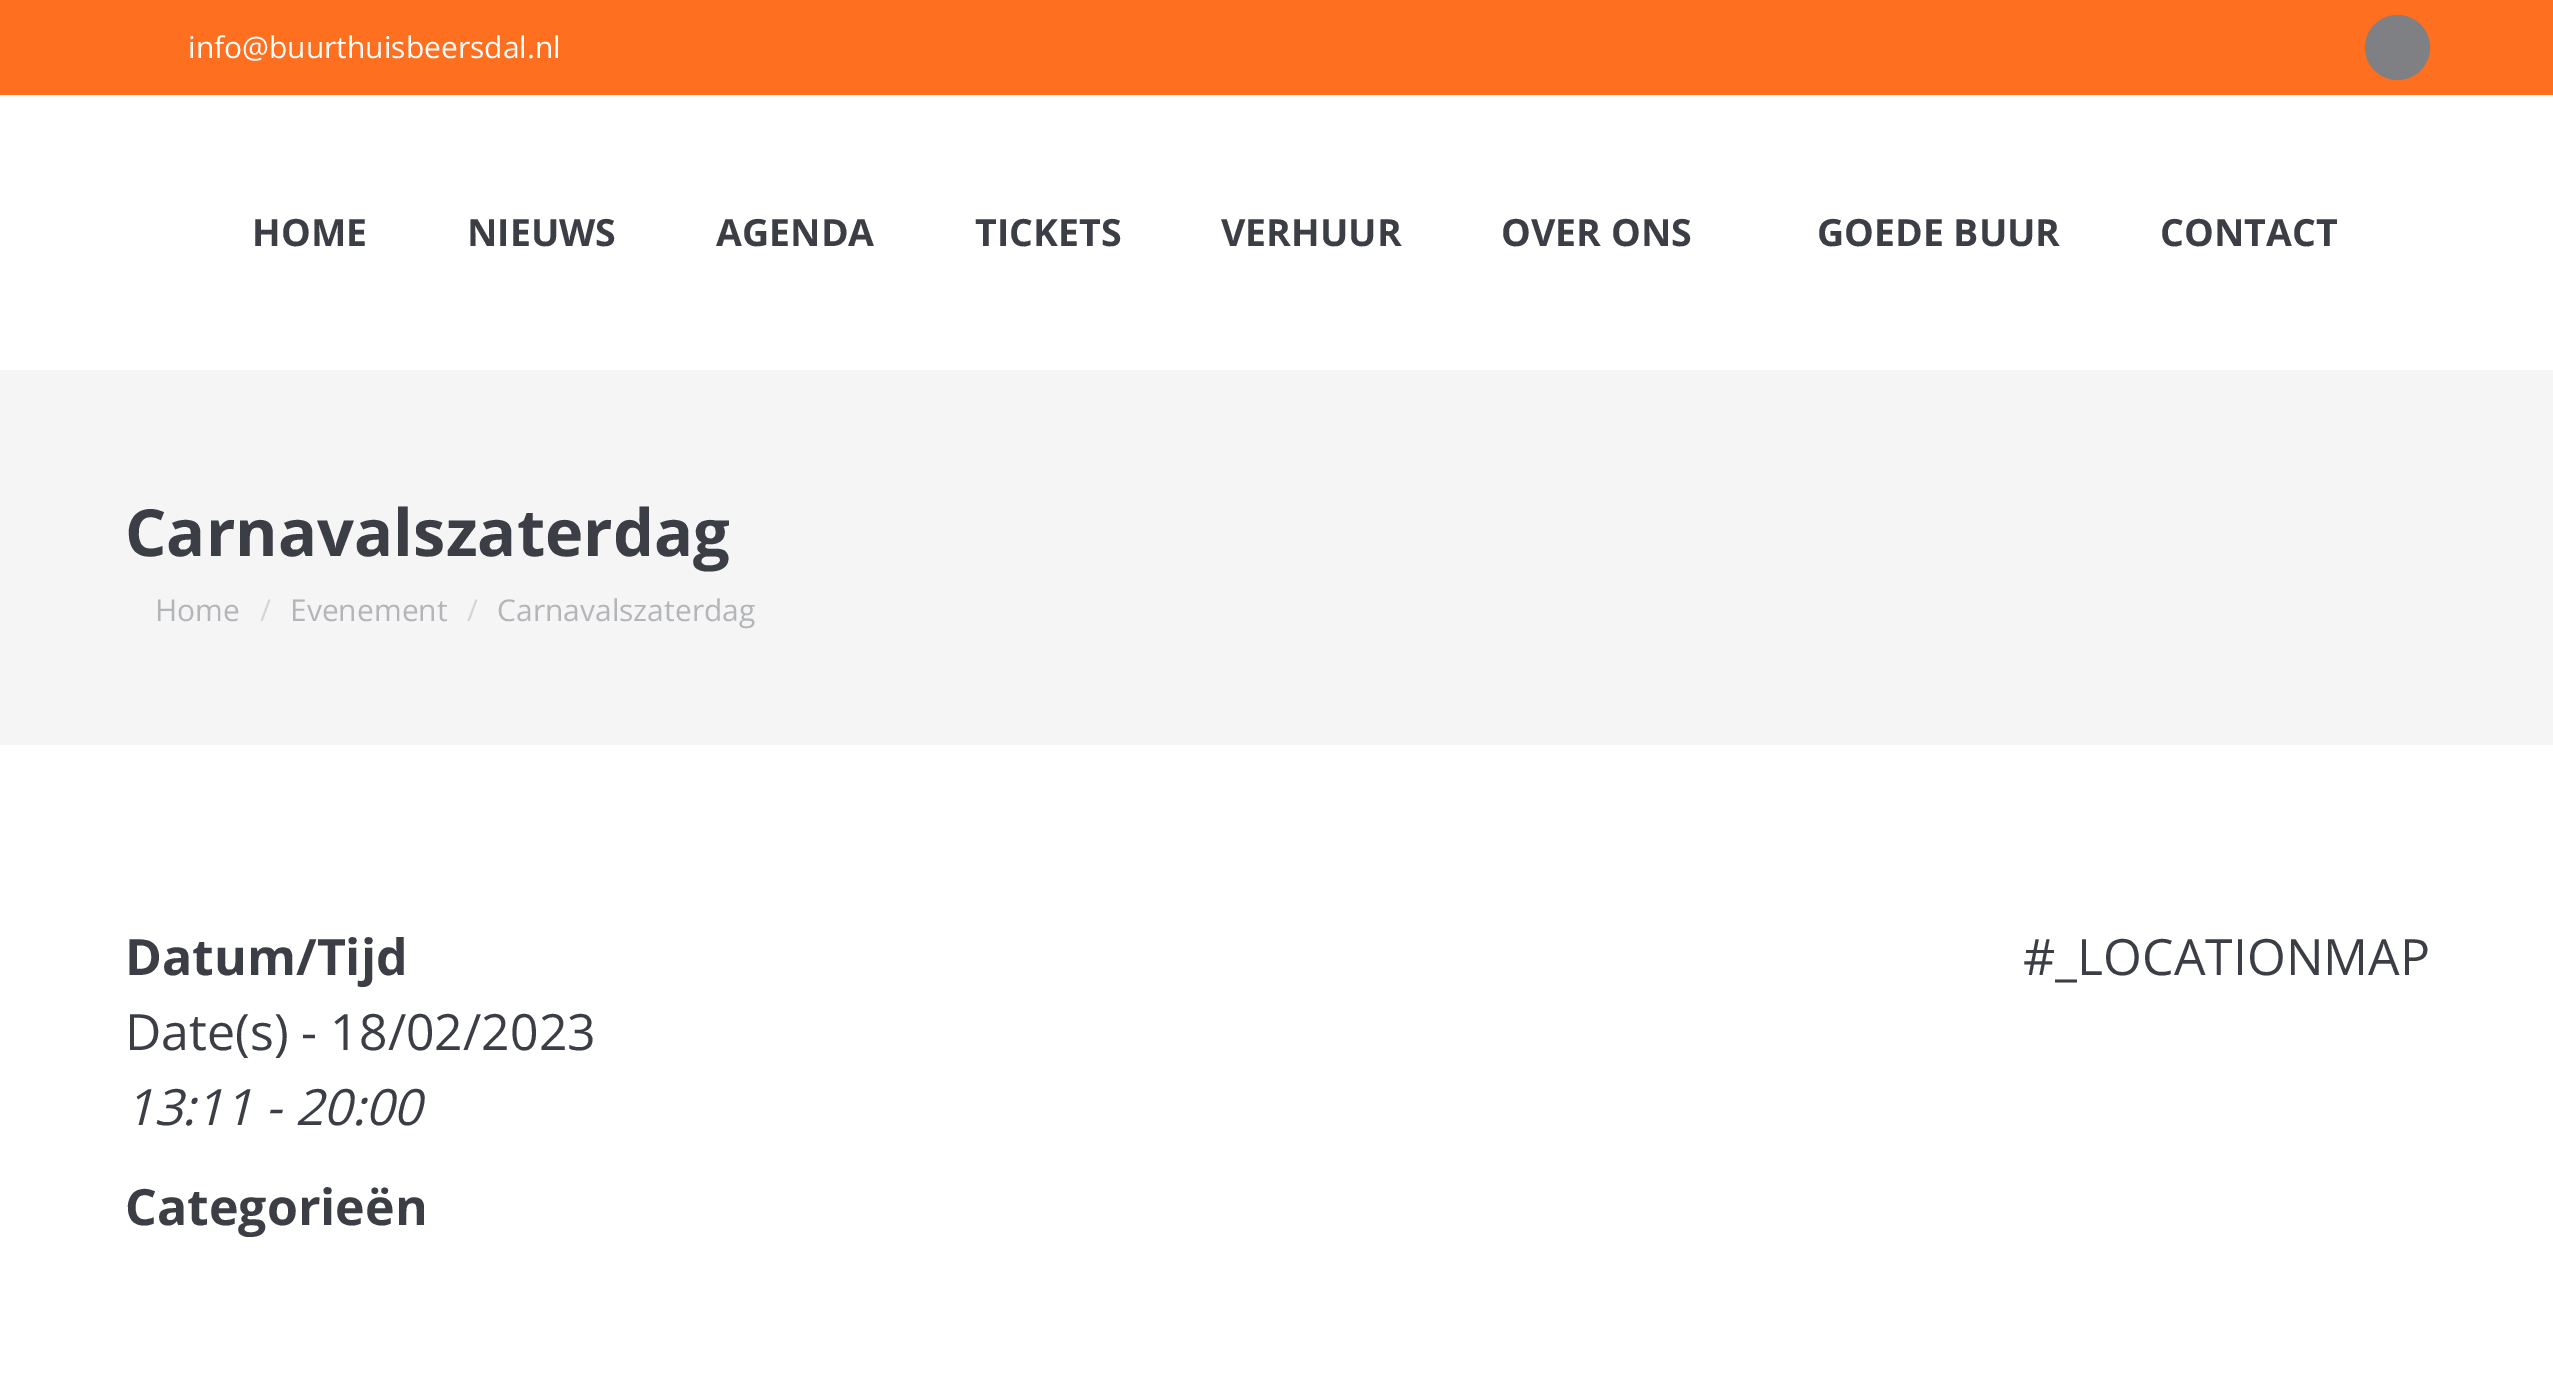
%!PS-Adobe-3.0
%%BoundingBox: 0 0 2553 1378
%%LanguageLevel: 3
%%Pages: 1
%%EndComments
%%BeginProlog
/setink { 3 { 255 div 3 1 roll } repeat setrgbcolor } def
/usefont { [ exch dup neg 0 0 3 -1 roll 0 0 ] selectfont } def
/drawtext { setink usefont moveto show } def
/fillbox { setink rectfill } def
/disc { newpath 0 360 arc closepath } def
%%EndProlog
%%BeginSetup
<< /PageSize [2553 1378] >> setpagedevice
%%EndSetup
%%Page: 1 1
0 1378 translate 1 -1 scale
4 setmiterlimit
0 0 2553 1378 255 255 255 fillbox
0 0 2553 95 255 111 32 fillbox
(info@buurthuisbeersdal.nl) 188 58 /OpenSans-Regular 30 255 255 255 drawtext
127 128 132 setink
2397.5 47.5 32.5 disc fill
(HOME) 252 246 /OpenSans-Bold 37.5 60 62 69 drawtext
(NIEUWS) 467 246 /OpenSans-Bold 37.5 60 62 69 drawtext
(AGENDA) 716 246 /OpenSans-Bold 37.5 60 62 69 drawtext
(TICKETS) 975 246 /OpenSans-Bold 37.5 60 62 69 drawtext
(VERHUUR) 1221 246 /OpenSans-Bold 37.5 60 62 69 drawtext
(OVER ONS) 1501 246 /OpenSans-Bold 37.5 60 62 69 drawtext
(GOEDE BUUR) 1817 246 /OpenSans-Bold 37.5 60 62 69 drawtext
(CONTACT) 2160 246 /OpenSans-Bold 37.5 60 62 69 drawtext
0 370 2553 375 245 245 245 fillbox
(Carnavalszaterdag) 125 556 /OpenSans-Bold 65 60 62 69 drawtext
(Home) 155 621 /OpenSans-Regular 30 179 181 185 drawtext
(/) 260 621 /OpenSans-Regular 30 212 213 215 drawtext
(Evenement) 290 621 /OpenSans-Regular 30 179 181 185 drawtext
(/) 467 621 /OpenSans-Regular 30 212 213 215 drawtext
(Carnavalszaterdag) 497 621 /OpenSans-Regular 30 179 181 185 drawtext
(Datum/Tijd) 125 975 /OpenSans-Bold 50 60 62 69 drawtext
(Date\(s\) - 18/02/2023) 125 1050 /OpenSans-Regular 50 60 62 69 drawtext
(13:11 - 20:00) 125 1125 /OpenSans-Italic 50 60 62 69 drawtext
(#_LOCATIONMAP) 2023 975 /OpenSans-Regular 50 60 62 69 drawtext
(Categorieën) 125 1225 /OpenSans-Bold 50 60 62 69 drawtext
showpage
%%EOF
